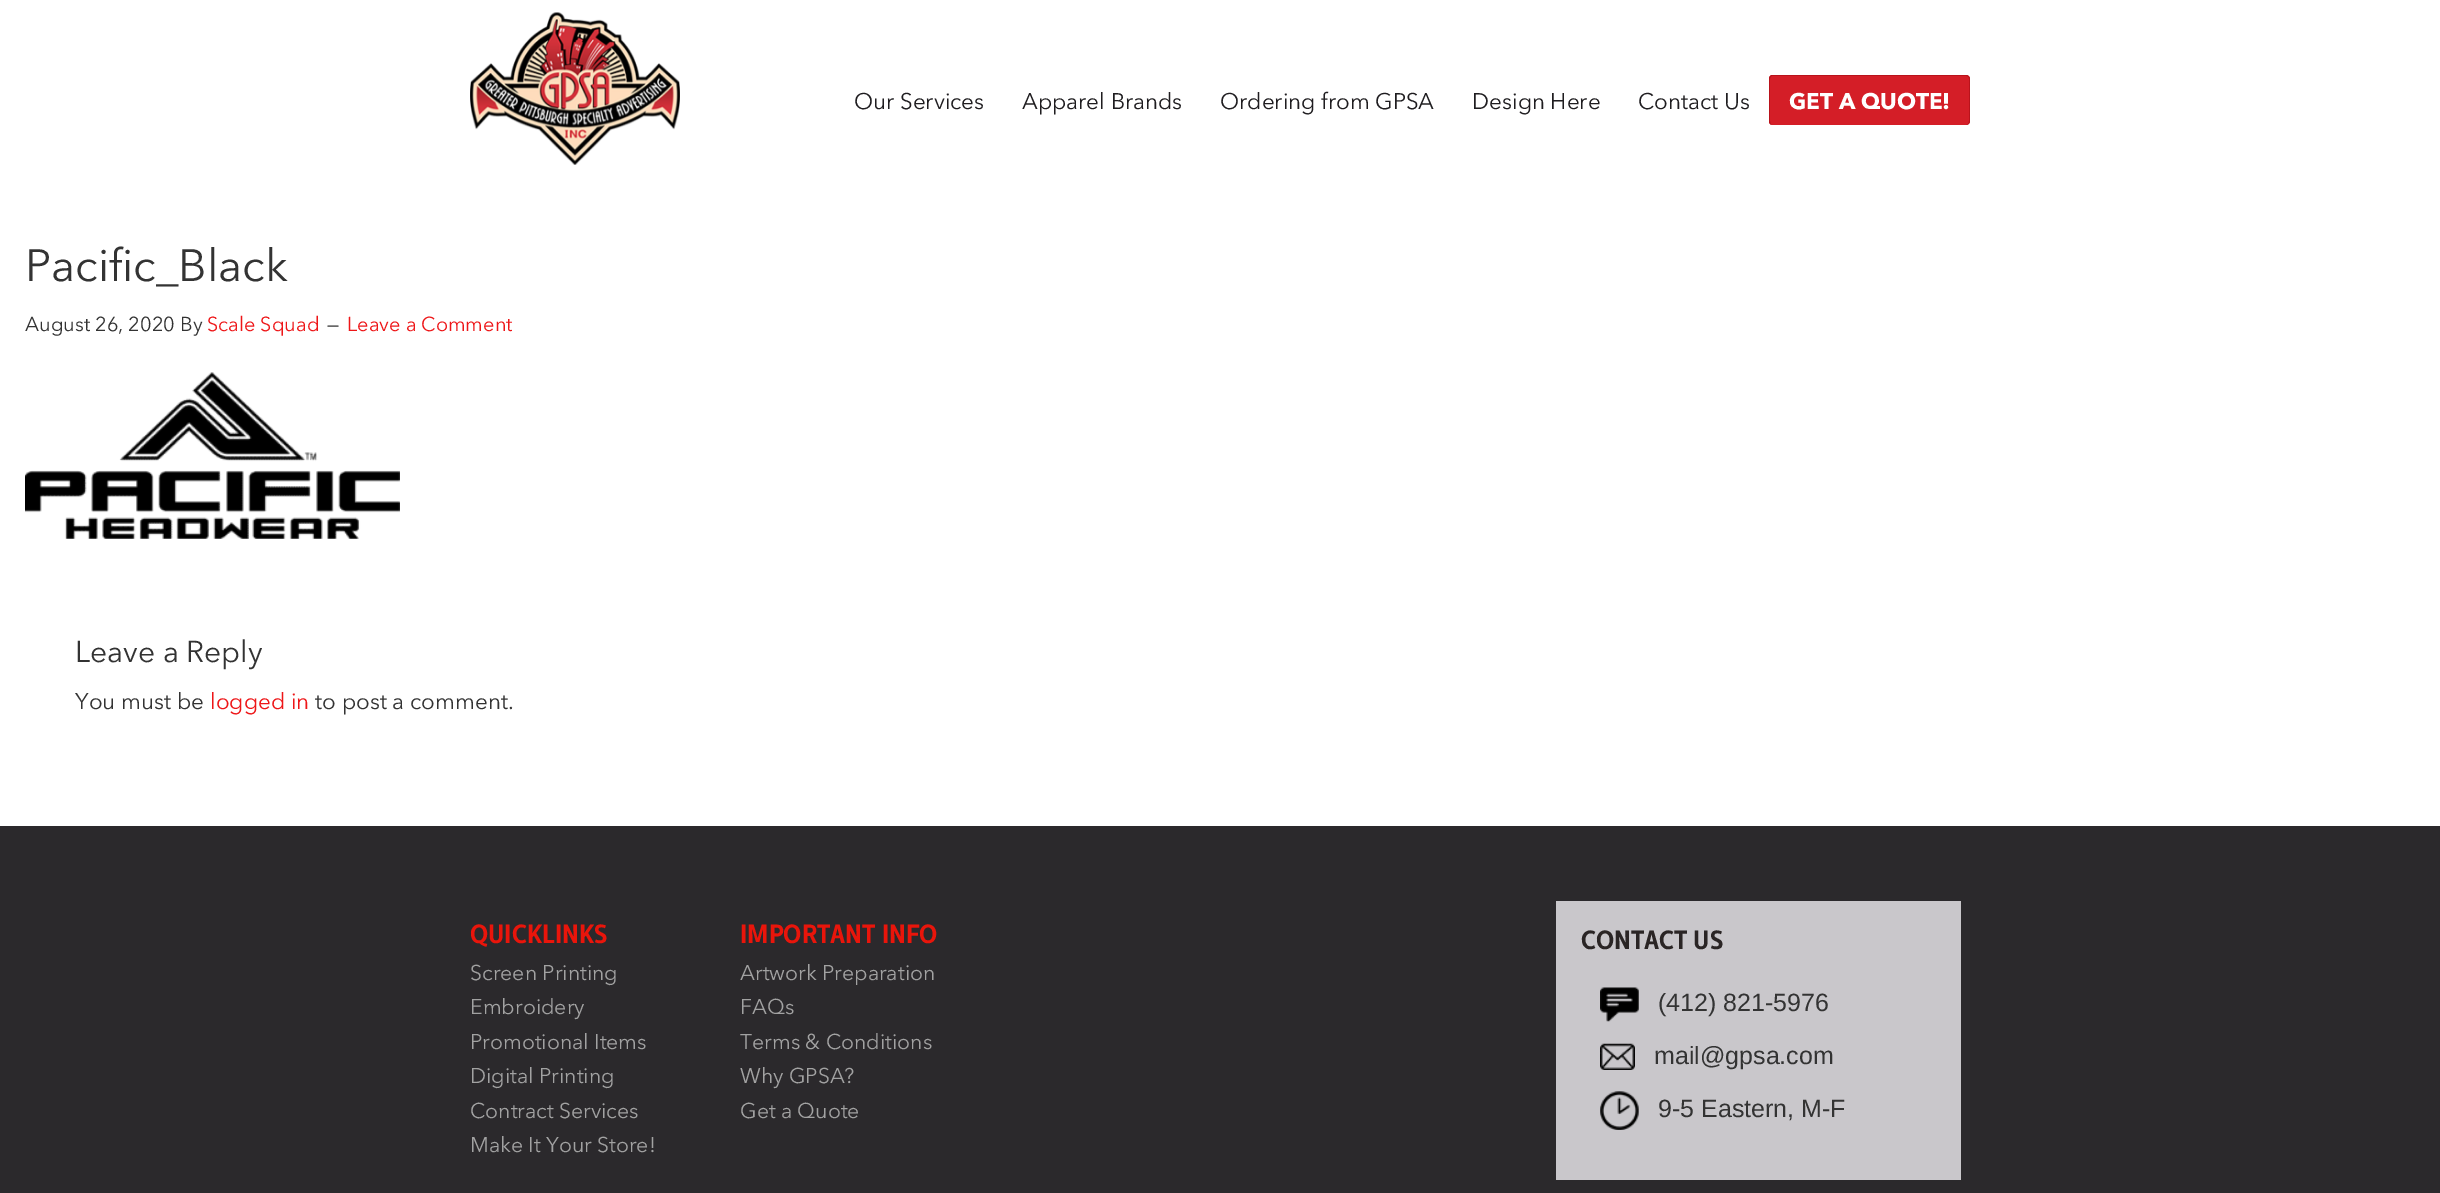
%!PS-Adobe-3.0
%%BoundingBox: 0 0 2440 1193
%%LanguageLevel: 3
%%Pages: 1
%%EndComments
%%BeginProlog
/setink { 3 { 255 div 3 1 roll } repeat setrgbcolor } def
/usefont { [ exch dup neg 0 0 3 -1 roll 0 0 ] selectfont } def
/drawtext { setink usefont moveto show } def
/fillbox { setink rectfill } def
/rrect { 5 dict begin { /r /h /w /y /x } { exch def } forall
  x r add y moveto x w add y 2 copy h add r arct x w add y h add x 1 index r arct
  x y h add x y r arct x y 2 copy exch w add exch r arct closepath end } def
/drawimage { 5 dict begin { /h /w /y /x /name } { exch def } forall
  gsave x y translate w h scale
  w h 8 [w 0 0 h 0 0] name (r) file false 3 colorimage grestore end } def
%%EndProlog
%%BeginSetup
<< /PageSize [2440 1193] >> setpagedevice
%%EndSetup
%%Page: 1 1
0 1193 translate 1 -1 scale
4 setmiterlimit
0 0 2440 1193 255 255 255 fillbox
(assets/img1.rgb) 470 12 210 153 drawimage
(Our Services) 854 109 /AvenirNext-Regular 22.5 31 29 32 drawtext
(Apparel Brands) 1022 109 /AvenirNext-Regular 22.5 31 29 32 drawtext
(Ordering from GPSA) 1220 109 /AvenirNext-Regular 22.5 31 29 32 drawtext
(Design Here) 1472 109 /AvenirNext-Regular 22.5 31 29 32 drawtext
(Contact Us) 1638 109 /AvenirNext-Regular 22.5 31 29 32 drawtext
212 30 39 setink
1769 75 201 50 4 rrect fill
185 19 27 setink
1772 75 moveto 1966 75 lineto 1968 75 1970 77 1970 79 curveto 1970 121 lineto 1970 123 1968 125 1966 125 curveto 1772 125 lineto 1770 125 1769 123 1769 121 curveto 1769 79 lineto 1769 77 1770 75 1772 75 curveto closepath 1772 76 moveto 1966 76 lineto 1968 76 1969 77 1969 79 curveto 1969 121 lineto 1969 123 1968 125 1966 125 curveto 1772 125 lineto 1771 125 1770 123 1770 121 curveto 1770 79 lineto 1770 77 1771 76 1772 76 curveto closepath eofill
(GET A QUOTE!) 1789 109 /AvenirNext-Bold 22.5 255 255 255 drawtext
(Pacific_Black) 25 281 /AvenirNext-Regular 45 51 51 51 drawtext
(August 26, 2020 By) 25 331 /AvenirNext-Regular 20 51 51 51 drawtext
(Scale Squad) 207 331 /AvenirNext-Regular 20 238 22 24 drawtext
(—) 327 331 /AvenirNext-Regular 20 51 51 51 drawtext
(Leave a Comment) 347 331 /AvenirNext-Regular 20 238 22 24 drawtext
(assets/img2.rgb) 25 372 375 167 drawimage
(Leave a Reply) 75 662 /AvenirNext-Regular 30 51 51 51 drawtext
(You must be) 75 709 /AvenirNext-Regular 22.5 51 51 51 drawtext
(logged in) 210 709 /AvenirNext-Regular 22.5 238 22 24 drawtext
(to post a comment.) 315 709 /AvenirNext-Regular 22.5 51 51 51 drawtext
0 826 2440 367 43 41 44 fillbox
(QUICKLINKS) 470 943 /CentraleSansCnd-Bold 26.25 233 21 11 drawtext
(Screen Printing) 470 980 /AvenirNext-Regular 21.25 162 162 162 drawtext
(Embroidery) 470 1014 /AvenirNext-Regular 21.25 162 162 162 drawtext
(Promotional Items) 470 1049 /AvenirNext-Regular 21.25 162 162 162 drawtext
(Digital Printing) 470 1083 /AvenirNext-Regular 21.25 162 162 162 drawtext
(Contract Services) 470 1118 /AvenirNext-Regular 21.25 162 162 162 drawtext
(Make It Your Store!) 470 1152 /AvenirNext-Regular 21.25 162 162 162 drawtext
(IMPORTANT INFO) 740 943 /CentraleSansCnd-Bold 26.25 233 21 11 drawtext
(Artwork Preparation) 740 980 /AvenirNext-Regular 21.25 162 162 162 drawtext
(FAQs) 740 1014 /AvenirNext-Regular 21.25 162 162 162 drawtext
(Terms & Conditions) 740 1049 /AvenirNext-Regular 21.25 162 162 162 drawtext
(Why GPSA?) 740 1083 /AvenirNext-Regular 21.25 162 162 162 drawtext
(Get a Quote) 740 1118 /AvenirNext-Regular 21.25 162 162 162 drawtext
1556 901 405 279 201 199 203 fillbox
(CONTACT US) 1581 949 /CentraleSansCnd-Bold 26.25 42 37 37 drawtext
(assets/img3.rgb) 1600 987 39 35 drawimage
(\(412\) 821-5976) 1658 1011 /LiberationSans-Regular 25 51 51 51 drawtext
(assets/img4.rgb) 1600 1043 35 27 drawimage
(mail@gpsa.com) 1654 1064 /LiberationSans-Regular 25 51 51 51 drawtext
(assets/img5.rgb) 1600 1091 39 39 drawimage
(9-5 Eastern, M-F) 1658 1117 /LiberationSans-Regular 25 51 51 51 drawtext
showpage
%%EOF
